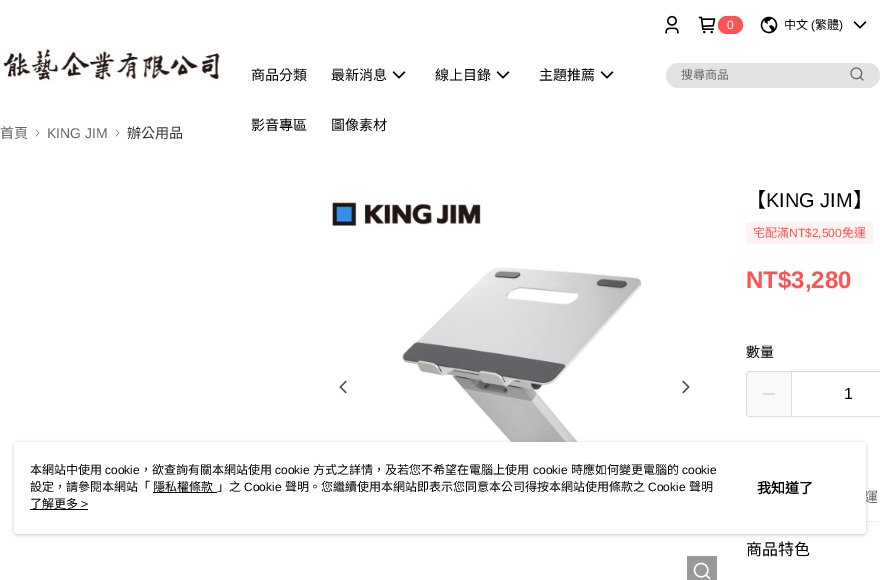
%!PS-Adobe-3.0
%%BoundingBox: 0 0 880 580
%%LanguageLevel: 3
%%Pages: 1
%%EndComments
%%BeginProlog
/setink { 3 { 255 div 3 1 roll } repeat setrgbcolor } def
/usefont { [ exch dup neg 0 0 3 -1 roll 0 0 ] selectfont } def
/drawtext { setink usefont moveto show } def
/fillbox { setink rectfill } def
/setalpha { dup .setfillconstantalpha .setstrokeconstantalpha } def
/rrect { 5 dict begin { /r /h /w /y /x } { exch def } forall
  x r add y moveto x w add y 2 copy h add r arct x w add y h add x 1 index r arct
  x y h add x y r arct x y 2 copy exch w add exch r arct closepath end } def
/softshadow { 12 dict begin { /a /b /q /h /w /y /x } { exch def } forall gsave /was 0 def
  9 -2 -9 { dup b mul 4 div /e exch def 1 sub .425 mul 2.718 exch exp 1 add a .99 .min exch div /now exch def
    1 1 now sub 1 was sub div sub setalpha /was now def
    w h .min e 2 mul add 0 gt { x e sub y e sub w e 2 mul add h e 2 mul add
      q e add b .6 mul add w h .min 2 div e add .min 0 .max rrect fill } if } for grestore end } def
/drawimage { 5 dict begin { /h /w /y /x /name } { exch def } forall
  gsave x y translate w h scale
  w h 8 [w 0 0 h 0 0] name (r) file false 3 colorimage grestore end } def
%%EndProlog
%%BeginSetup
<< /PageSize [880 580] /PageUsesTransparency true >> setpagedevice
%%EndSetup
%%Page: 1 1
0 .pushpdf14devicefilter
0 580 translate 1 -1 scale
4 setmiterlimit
0 0 880 580 255 255 255 fillbox
(assets/img1.rgb) 0 49 220 34 drawimage
(assets/img2.rgb) 665 15 14 19 drawimage
(assets/img3.rgb) 698 16 18 18 drawimage
255 83 83 setink
718 16 25 18 9 rrect fill
(0) 727 29 /LiberationSans-Regular 12 255 255 255 drawtext
(assets/img4.rgb) 760 16 18 18 drawimage
(中文) 784 29 /NotoSansCJKTC-Regular 12 0 0 0 drawtext
(\() 811 29 /LiberationSans-Regular 12 0 0 0 drawtext
(繁體) 815 29 /NotoSansCJKTC-Regular 12 0 0 0 drawtext
(\)) 839 29 /LiberationSans-Regular 12 0 0 0 drawtext
(assets/img5.rgb) 853 21 14 8 drawimage
(商品分類) 251 80 /NotoSansCJKTC-Regular 14 0 0 0 drawtext
(最新消息) 331 80 /NotoSansCJKTC-Regular 14 0 0 0 drawtext
(assets/img5.rgb) 392 71 14 8 drawimage
(線上目錄) 435 80 /NotoSansCJKTC-Regular 14 0 0 0 drawtext
(assets/img5.rgb) 496 71 14 8 drawimage
(主題推薦) 539 80 /NotoSansCJKTC-Regular 14 0 0 0 drawtext
(assets/img5.rgb) 600 71 14 8 drawimage
(影音專區) 251 130 /NotoSansCJKTC-Regular 14 0 0 0 drawtext
(圖像素材) 331 130 /NotoSansCJKTC-Regular 14 0 0 0 drawtext
228 226 226 setink
666 63 214 25 12.5 rrect fill
(搜尋商品) 681 79 /NotoSansCJKTC-Regular 12 102 102 102 drawtext
(assets/img6.rgb) 850 67 14 14 drawimage
(首頁) 0 138 /NotoSansCJKTC-Regular 14 102 102 102 drawtext
(assets/img7.rgb) 35 129 5 8 drawimage
(KING JIM) 47 138 /LiberationSans-Regular 14 102 102 102 drawtext
(assets/img7.rgb) 115 129 5 8 drawimage
(辦公用品) 127 138 /NotoSansCJKTC-Regular 14 51 51 51 drawtext
(assets/img8.rgb) 332 202 310 240 drawimage
687 556 30 24 153 153 153 fillbox
(assets/img9.rgb) 693 562 18 18 drawimage
(assets/img10.rgb) 339 380 8 14 drawimage
(assets/img11.rgb) 682 380 8 14 drawimage
(【) 746 207 /NotoSansCJKTC-Regular 20 0 0 0 drawtext
(KING JIM) 766 207 /LiberationSans-Regular 20 0 0 0 drawtext
(】) 853 207 /NotoSansCJKTC-Regular 20 0 0 0 drawtext
255 242 242 setink
746.5 222.5 126 21 1.5 rrect gsave fill grestore
stroke
(宅配滿) 753 237 /NotoSansCJKTC-Regular 12 255 83 83 drawtext
(NT$2,500) 789 237 /LiberationSans-Regular 12 255 83 83 drawtext
(免運) 842 237 /NotoSansCJKTC-Regular 12 255 83 83 drawtext
(NT$3,280) 746 288 /LiberationSans-Bold 24 255 83 83 drawtext
(數量) 746 357 /NotoSansCJKTC-Regular 14 0 0 0 drawtext
221 221 221 setink
746.5 371.5 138 45 3.5 rrect stroke
0.4 setalpha
747 372 44 44 241 241 241 fillbox
1 setalpha
763 393 12 2 221 221 221 fillbox
791 372 1 44 221 221 221 fillbox
(1) 844 399 /LiberationSans-Regular 16 0 0 0 drawtext
866 521 14 1 236 239 241 fillbox
(運) 864 502 /NotoSansCJKTC-Regular 14 102 102 102 drawtext
(商品特色) 746 555 /NotoSansCJKTC-Regular 16 0 0 0 drawtext
151 151 151 setink
14 443 852 92 4 2 0.5 softshadow
255 255 255 setink
14 442 852 92 4 rrect fill
(本網站中使用) 30 474 /NotoSansCJKTC-Regular 12 0 0 0 drawtext
(cookie) 105 474 /LiberationSans-Regular 12 0 0 0 drawtext
(，欲查詢有關本網站使用) 140 474 /NotoSansCJKTC-Regular 12 0 0 0 drawtext
(cookie) 275 474 /LiberationSans-Regular 12 0 0 0 drawtext
(方式之詳情，及若您不希望在電腦上使用) 313 474 /NotoSansCJKTC-Regular 12 0 0 0 drawtext
(cookie) 533 474 /LiberationSans-Regular 12 0 0 0 drawtext
(時應如何變更電腦的) 571 474 /NotoSansCJKTC-Regular 12 0 0 0 drawtext
(cookie) 682 474 /LiberationSans-Regular 12 0 0 0 drawtext
(設定，請參閱本網站「) 30 491 /NotoSansCJKTC-Regular 12 0 0 0 drawtext
(隱私權條款) 153 491 /NotoSansCJKTC-Regular 12 0 0 0 drawtext
153 492 64 1 0 0 0 fillbox
(」之) 217 491 /NotoSansCJKTC-Regular 12 0 0 0 drawtext
(Cookie) 244 491 /LiberationSans-Regular 12 0 0 0 drawtext
(聲明。您繼續使用本網站即表示您同意本公司得按本網站使用條款之) 285 491 /NotoSansCJKTC-Regular 12 0 0 0 drawtext
(Cookie) 648 491 /LiberationSans-Regular 12 0 0 0 drawtext
(聲明) 689 491 /NotoSansCJKTC-Regular 12 0 0 0 drawtext
(了解更多) 30 508 /NotoSansCJKTC-Regular 12 0 0 0 drawtext
(>) 81 508 /LiberationSans-Regular 12 0 0 0 drawtext
30 509 58 1 0 0 0 fillbox
(我知道了) 757 493 /NotoSansCJKTC-Bold 14 0 0 0 drawtext
.poppdf14devicefilter showpage
%%EOF
